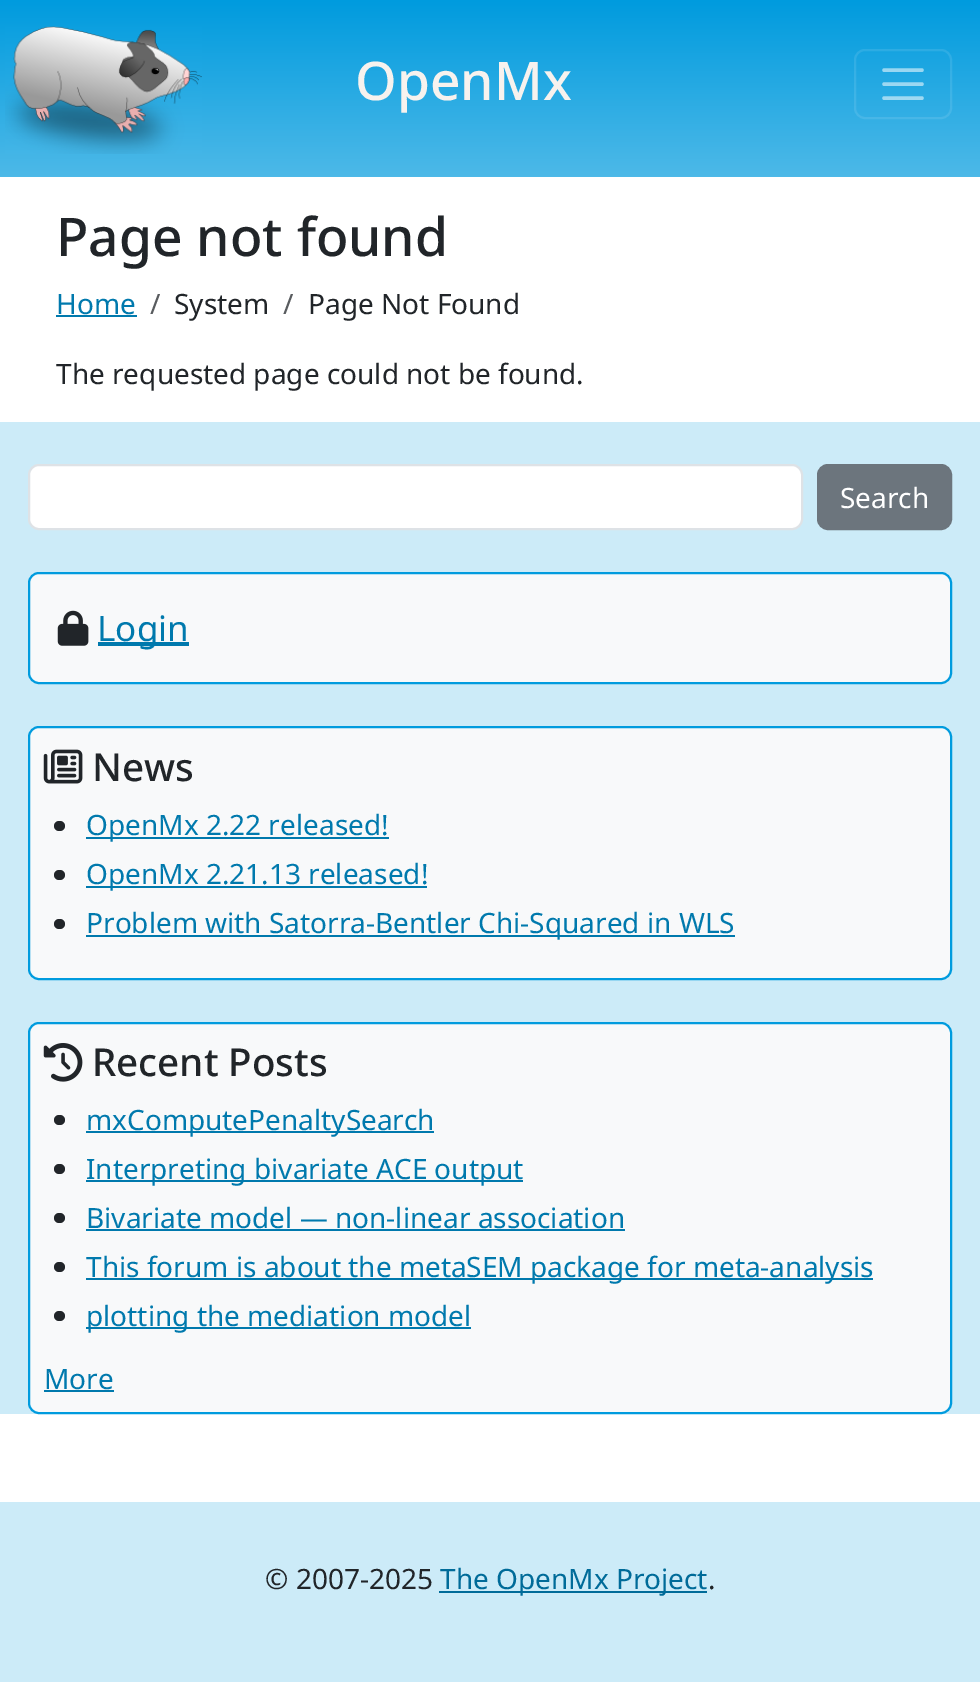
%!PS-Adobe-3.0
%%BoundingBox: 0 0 980 1682
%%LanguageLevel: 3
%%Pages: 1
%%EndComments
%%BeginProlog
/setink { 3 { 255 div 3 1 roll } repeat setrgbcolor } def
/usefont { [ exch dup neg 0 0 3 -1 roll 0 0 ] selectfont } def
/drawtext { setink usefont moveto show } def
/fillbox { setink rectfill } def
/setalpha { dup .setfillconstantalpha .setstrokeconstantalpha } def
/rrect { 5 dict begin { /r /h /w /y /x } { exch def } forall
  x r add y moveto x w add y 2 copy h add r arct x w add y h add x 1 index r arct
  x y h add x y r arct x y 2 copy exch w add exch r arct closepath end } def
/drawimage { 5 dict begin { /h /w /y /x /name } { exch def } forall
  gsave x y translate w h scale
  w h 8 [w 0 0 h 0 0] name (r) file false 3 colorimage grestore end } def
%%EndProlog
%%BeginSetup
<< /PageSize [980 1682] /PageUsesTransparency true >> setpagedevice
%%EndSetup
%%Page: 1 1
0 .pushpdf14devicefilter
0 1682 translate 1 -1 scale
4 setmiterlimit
0 0 980 1682 255 255 255 fillbox
gsave 0 0 moveto 980 0 lineto 980 177 lineto 0 177 lineto closepath clip newpath
<< /ShadingType 2 /ColorSpace /DeviceRGB /Coords [490 0 490 177] /Extend [true true] /Function << /FunctionType 2 /Domain [0 1] /C0 [0 0.608 0.871] /C1 [0.302 0.725 0.91] /N 1 >> >> shfill grestore
(assets/img1.rgb) 5 26 197 128 drawimage
(OpenMx) 355 100 /NotoSans-Medium 53.25 247 242 238 drawtext
0.1 setalpha
255 255 255 setink
2 setlinewidth
855 50 96 68 10 rrect stroke
0.55 setalpha
3.5 setlinewidth
1 setlinecap
884 70 moveto 922 70 lineto 884 84 moveto 922 84 lineto 884 98 moveto 922 98 lineto stroke
1 setalpha
(Page not found) 56 256 /NotoSans-Medium 53.25 33 37 41 drawtext
(Home) 56 314 /NotoSans-Regular 28 0 121 173 drawtext
56 315 81 2 0 121 173 fillbox
(/) 150 314 /NotoSans-Regular 28 89 92 95 drawtext
(System) 174 314 /NotoSans-Regular 28 33 37 41 drawtext
(/) 283 314 /NotoSans-Regular 28 89 92 95 drawtext
(Page Not Found) 308 314 /NotoSans-Regular 28 33 37 41 drawtext
(The requested page could not be found.) 56 384 /NotoSans-Regular 28 33 37 41 drawtext
0 422 980 992 204 235 248 fillbox
255 255 255 setink
29 465 773 64 10 rrect gsave fill grestore
222 226 230 setink
2 setlinewidth
0 setlinecap
stroke
108 117 125 setink
818 465 133 64 10 rrect gsave fill grestore
stroke
(Search) 840 508 /NotoSans-Regular 28 255 255 255 drawtext
248 249 250 setink
29 573 922 110 10 rrect gsave fill grestore
0 155 222 setink
stroke
(assets/img2.rgb) 57 610 32 36 drawimage
98 642 91 4 0 121 173 fillbox
(Login) 97 641 /NotoSans-Regular 35 0 121 173 drawtext
248 249 250 setink
29 727 922 252 10 rrect gsave fill grestore
0 155 222 setink
stroke
(assets/img3.rgb) 43 749 40 35 drawimage
(News) 92 781 /NotoSans-Medium 38.5 33 37 41 drawtext
54 821 11 10 5 rrect fill
86 837 303 2 0 121 173 fillbox
(OpenMx 2.22 released!) 86 835 /NotoSans-Regular 28 0 121 173 drawtext
33 37 41 setink
54 870 11 10 5 rrect fill
86 886 341 2 0 121 173 fillbox
(OpenMx 2.21.13 released!) 86 884 /NotoSans-Regular 28 0 121 173 drawtext
33 37 41 setink
54 919 11 10 5 rrect fill
86 935 649 2 0 121 173 fillbox
(Problem with Satorra-Bentler Chi-Squared in WLS) 86 933 /NotoSans-Regular 28 0 121 173 drawtext
248 249 250 setink
29 1023 922 390 10 rrect gsave fill grestore
0 155 222 setink
stroke
(assets/img4.rgb) 43 1043 40 39 drawimage
(Recent Posts) 92 1076 /NotoSans-Medium 38.5 33 37 41 drawtext
54 1115 11 10 5 rrect fill
86 1131 348 2 0 121 173 fillbox
(mxComputePenaltySearch) 86 1130 /NotoSans-Regular 28 0 121 173 drawtext
33 37 41 setink
54 1164 11 10 5 rrect fill
86 1180 437 2 0 121 173 fillbox
(Interpreting bivariate ACE output) 86 1179 /NotoSans-Regular 28 0 121 173 drawtext
33 37 41 setink
54 1213 11 10 5 rrect fill
(Bivariate model — non-linear association) 86 1228 /NotoSans-Regular 28 0 121 173 drawtext
86 1229 539 2 0 121 173 fillbox
33 37 41 setink
54 1262 11 10 5 rrect fill
86 1278 787 2 0 121 173 fillbox
(This forum is about the metaSEM package for meta-analysis) 86 1277 /NotoSans-Regular 28 0 121 173 drawtext
33 37 41 setink
54 1311 11 10 5 rrect fill
86 1327 385 2 0 121 173 fillbox
(plotting the mediation model) 86 1326 /NotoSans-Regular 28 0 121 173 drawtext
(More) 44 1389 /NotoSans-Regular 28 0 121 173 drawtext
44 1390 70 2 0 121 173 fillbox
0 1502 980 180 204 235 248 fillbox
(© 2007-2025) 265 1589 /NotoSans-Regular 28 33 37 41 drawtext
439 1591 268 2 0 107 153 fillbox
(The OpenMx Project) 440 1589 /NotoSans-Regular 28 0 107 153 drawtext
(.) 708 1589 /NotoSans-Regular 28 33 37 41 drawtext
.poppdf14devicefilter showpage
%%EOF
